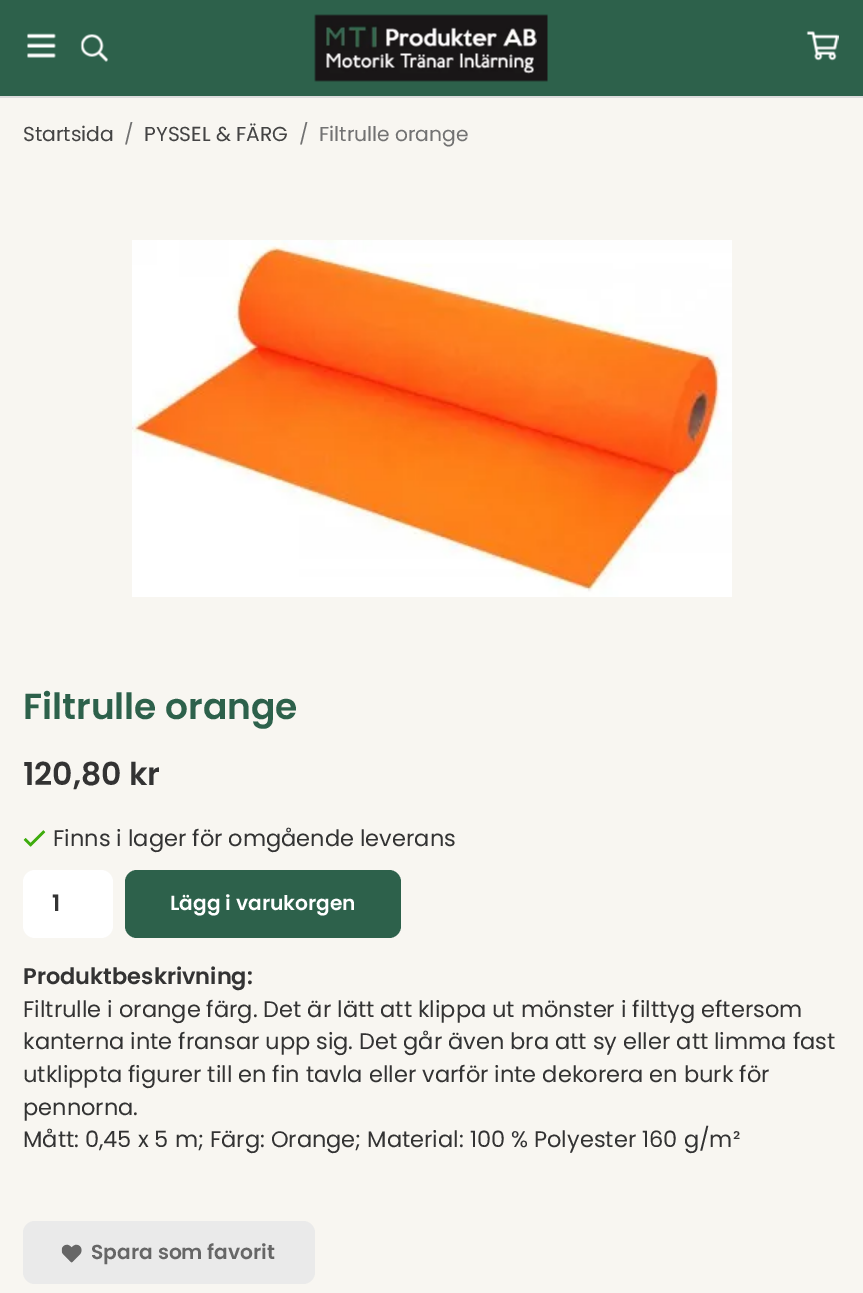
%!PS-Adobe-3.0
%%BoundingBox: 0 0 863 1293
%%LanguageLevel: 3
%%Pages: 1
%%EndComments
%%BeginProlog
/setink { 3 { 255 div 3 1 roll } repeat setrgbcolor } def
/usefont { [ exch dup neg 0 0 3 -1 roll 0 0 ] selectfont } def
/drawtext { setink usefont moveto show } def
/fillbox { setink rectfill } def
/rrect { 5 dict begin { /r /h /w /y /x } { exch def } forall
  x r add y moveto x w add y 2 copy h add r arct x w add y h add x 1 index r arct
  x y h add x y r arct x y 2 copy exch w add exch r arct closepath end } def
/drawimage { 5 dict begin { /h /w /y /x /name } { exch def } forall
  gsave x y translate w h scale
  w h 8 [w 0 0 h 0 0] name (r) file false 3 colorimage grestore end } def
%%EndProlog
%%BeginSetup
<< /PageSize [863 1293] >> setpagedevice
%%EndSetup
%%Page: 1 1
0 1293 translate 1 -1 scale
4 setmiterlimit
0 0 863 1293 248 246 241 fillbox
0 0 863 96 45 97 75 fillbox
0 96 863 2 220 220 220 fillbox
(assets/img1.rgb) 27 33 29 25 drawimage
(assets/img2.rgb) 80 34 29 28 drawimage
(assets/img3.rgb) 314 14 234 68 drawimage
(assets/img4.rgb) 806 31 33 30 drawimage
(Startsida) 23 141 /Poppins-Regular 20.25 68 68 68 drawtext
(/) 124 141 /Poppins-Regular 20.25 114 114 114 drawtext
(PYSSEL & FÄRG) 144 141 /Poppins-Regular 20.25 68 68 68 drawtext
(/) 299 141 /Poppins-Regular 20.25 114 114 114 drawtext
(Filtrulle orange) 319 141 /Poppins-Regular 20.25 114 114 114 drawtext
(assets/img5.rgb) 132 240 600 357 drawimage
(Filtrulle orange) 23 719 /Poppins-SemiBold 36 45 97 75 drawtext
(120,80 kr) 23 785 /Poppins-SemiBold 31.5 51 51 51 drawtext
(assets/img6.rgb) 23 830 23 17 drawimage
(Finns i lager för omgående leverans) 53 846 /Poppins-Regular 22.5 51 51 51 drawtext
255 255 255 setink
23 870 90 68 12 rrect fill
(1) 52 911 /Poppins-SemiBold 22.5 51 51 51 drawtext
45 97 75 setink
125 870 276 68 12 rrect fill
(Lägg i varukorgen) 170 910 /Poppins-SemiBold 20.25 255 255 255 drawtext
(Produktbeskrivning:) 23 984 /Poppins-SemiBold 22.5 51 51 51 drawtext
(Filtrulle i orange färg. Det är lätt att klippa ut mönster i filttyg eftersom) 23 1017 /Poppins-Regular 22.5 51 51 51 drawtext
(kanterna inte fransar upp sig. Det går även bra att sy eller att limma fast) 23 1049 /Poppins-Regular 22.5 51 51 51 drawtext
(utklippta figurer till en fin tavla eller varför inte dekorera en burk för) 23 1082 /Poppins-Regular 22.5 51 51 51 drawtext
(pennorna.) 23 1115 /Poppins-Regular 22.5 51 51 51 drawtext
(Mått: 0,45 x 5 m; Färg: Orange; Material: 100 % Polyester 160 g/m²) 23 1147 /Poppins-Regular 22.5 51 51 51 drawtext
234 234 234 setink
23 1221 292 63 12 rrect fill
(assets/img7.rgb) 61 1244 21 19 drawimage
(Spara som favorit) 91 1259 /Poppins-SemiBold 20.25 102 102 102 drawtext
showpage
%%EOF
